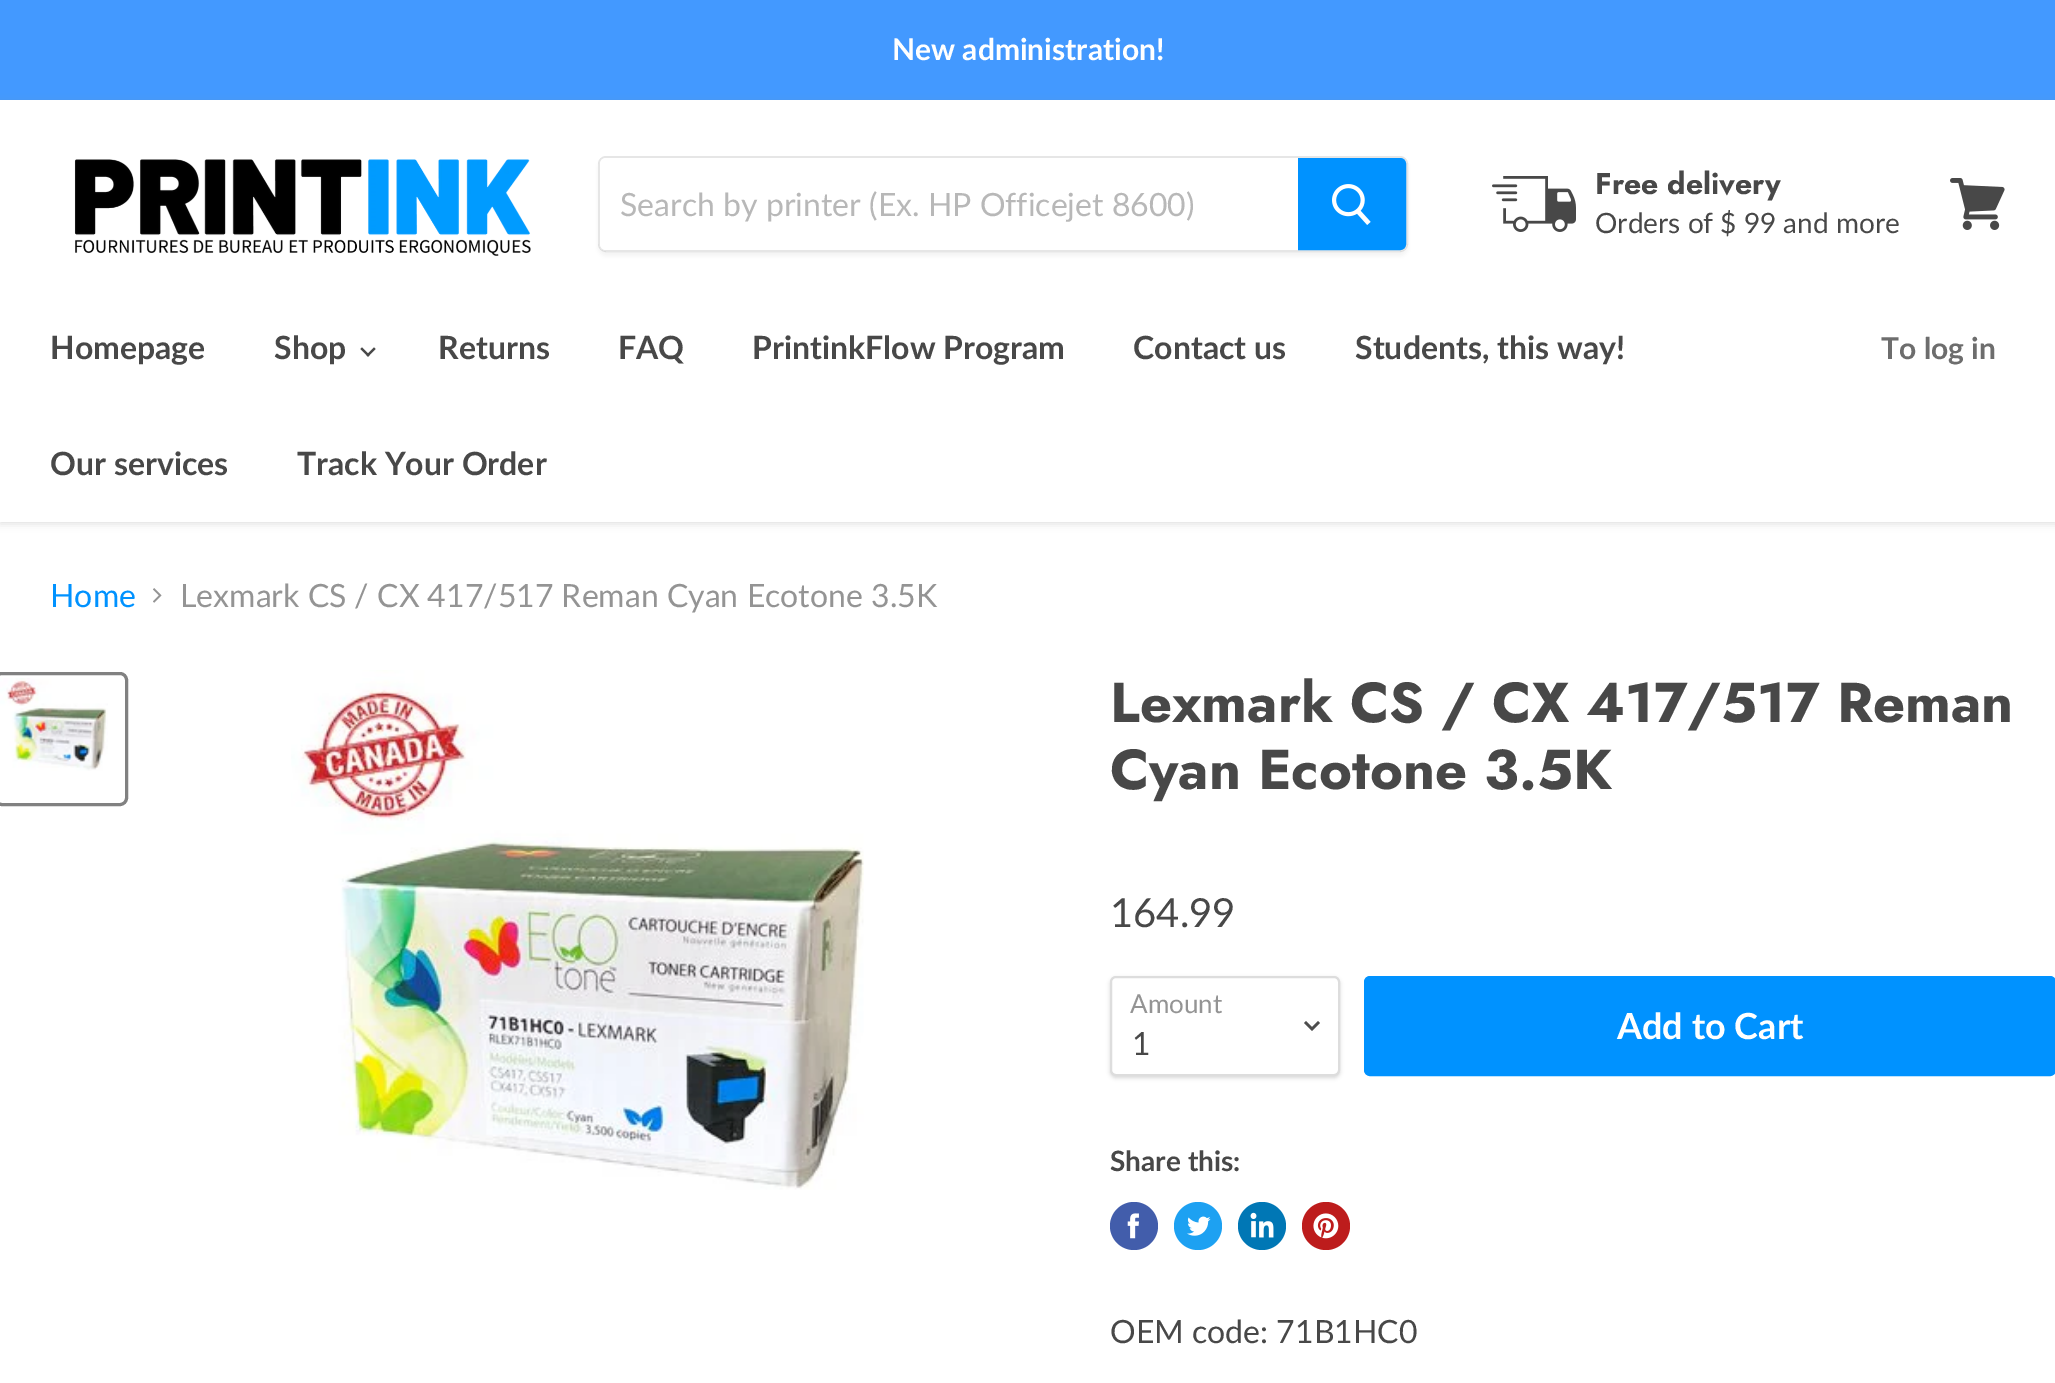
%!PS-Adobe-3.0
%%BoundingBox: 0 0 2055 1383
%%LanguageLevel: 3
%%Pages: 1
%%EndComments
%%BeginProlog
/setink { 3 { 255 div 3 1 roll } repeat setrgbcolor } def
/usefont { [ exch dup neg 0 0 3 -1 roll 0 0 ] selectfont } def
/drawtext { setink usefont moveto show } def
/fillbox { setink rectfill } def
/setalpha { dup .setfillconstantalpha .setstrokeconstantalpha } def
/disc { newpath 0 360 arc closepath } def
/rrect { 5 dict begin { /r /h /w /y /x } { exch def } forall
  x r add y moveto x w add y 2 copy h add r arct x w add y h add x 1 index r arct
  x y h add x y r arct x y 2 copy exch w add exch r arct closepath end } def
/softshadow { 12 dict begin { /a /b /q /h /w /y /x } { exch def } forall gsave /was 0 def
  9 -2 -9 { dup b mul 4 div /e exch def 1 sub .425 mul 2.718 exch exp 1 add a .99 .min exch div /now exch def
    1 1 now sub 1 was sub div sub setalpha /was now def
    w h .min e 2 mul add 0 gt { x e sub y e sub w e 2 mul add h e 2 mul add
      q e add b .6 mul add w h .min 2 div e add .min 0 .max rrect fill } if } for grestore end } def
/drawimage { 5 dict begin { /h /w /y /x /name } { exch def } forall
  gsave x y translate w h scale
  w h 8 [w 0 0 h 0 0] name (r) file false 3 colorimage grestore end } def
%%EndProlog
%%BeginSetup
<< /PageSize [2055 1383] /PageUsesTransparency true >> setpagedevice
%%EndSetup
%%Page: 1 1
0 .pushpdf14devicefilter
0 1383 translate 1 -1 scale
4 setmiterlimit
0 0 2055 1383 255 255 255 fillbox
0 0 2055 100 67 153 255 fillbox
(New administration!) 892 60 /Lato-Bold 30 255 255 255 drawtext
gsave
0 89 moveto 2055 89 lineto 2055 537 lineto 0 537 lineto closepath 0 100 moveto 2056 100 lineto 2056 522 lineto 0 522 lineto closepath eoclip newpath
128 128 128 setink
0 102 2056 422 0 4 0.25 softshadow
grestore
(assets/img1.rgb) 74 159 457 97 drawimage
gsave
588 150 moveto 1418 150 lineto 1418 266 lineto 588 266 lineto closepath 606 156 moveto 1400 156 lineto 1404.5 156 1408 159.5 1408 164 curveto 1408 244 lineto 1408 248.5 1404.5 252 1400 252 curveto 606 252 lineto 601.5 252 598 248.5 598 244 curveto 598 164 lineto 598 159.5 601.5 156 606 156 curveto closepath eoclip newpath
128 128 128 setink
598 160 810 96 8 3 0.11 softshadow
grestore
0.2 setalpha
128 128 128 setink
2 setlinewidth
599 157 808 94 7 rrect stroke
1 setalpha
255 255 255 setink
606 158 moveto 1298 158 lineto 1298 250 lineto 606 250 lineto 602.5 250 600 247.5 600 244 curveto 600 164 lineto 600 160.5 602.5 158 606 158 curveto closepath fill
(Search by printer \(Ex. HP Officejet 8600\)) 620 216 /Lato-Regular 32 184 184 184 drawtext
0 146 255 setink
1299 159 moveto 1400 159 lineto 1403 159 1405 161 1405 164 curveto 1405 244 lineto 1405 247 1403 249 1400 249 curveto 1299 249 lineto closepath gsave fill grestore
stroke
(assets/img2.rgb) 1332 184 39 41 drawimage
(assets/img3.rgb) 1492 176 84 56 drawimage
(Free delivery) 1595 194 /Jost-Bold 30 72 72 72 drawtext
(Orders of $ 99 and more) 1595 233 /Lato-Regular 28 72 72 72 drawtext
(assets/img4.rgb) 1950 178 55 52 drawimage
(Homepage) 50 359 /Lato-Bold 32 72 72 72 drawtext
(Shop) 274 359 /Lato-Bold 32 72 72 72 drawtext
(assets/img5.rgb) 360 347 16 10 drawimage
(Returns) 438 359 /Lato-Bold 32 72 72 72 drawtext
(FAQ) 618 359 /Lato-Bold 32 72 72 72 drawtext
(PrintinkFlow Program) 752 359 /Lato-Bold 32 72 72 72 drawtext
(Contact us) 1133 359 /Lato-Bold 32 72 72 72 drawtext
(Students, this way!) 1355 359 /Lato-Bold 32 72 72 72 drawtext
(Our services) 50 475 /Lato-Bold 32 72 72 72 drawtext
(Track Your Order) 297 475 /Lato-Bold 32 72 72 72 drawtext
(To log in) 1881 359 /Lato-Bold 30 109 109 109 drawtext
(Home) 50 607 /Lato-Regular 32 0 146 255 drawtext
(assets/img6.rgb) 153 588 9 15 drawimage
(Lexmark CS / CX 417/517 Reman Cyan Ecotone 3.5K) 180 607 /Lato-Regular 32 148 148 148 drawtext
129 129 129 setink
3 setlinewidth
-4.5 673.5 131 131 6.5 rrect stroke
(assets/img7.rgb) 0 678 108 93 drawimage
(assets/img8.rgb) 291 670 573 520 drawimage
(Lexmark CS / CX 417/517 Reman) 1110 722 /Jost-Bold 56 72 72 72 drawtext
(Cyan Ecotone 3.5K) 1110 789 /Jost-Bold 56 72 72 72 drawtext
(164.99) 1110 927 /Lato-Regular 40 72 72 72 drawtext
0 0 0 setink
1110 978 230 100 6 2 0.15 softshadow
255 255 255 setink
1111 977 228 98 5 rrect gsave fill grestore
221 221 221 setink
2 setlinewidth
stroke
(Amount) 1130 1013 /Lato-Regular 26 148 148 148 drawtext
77 77 77 setink
2.5 setlinewidth
2 setlinecap
1312 1029 moveto 1318 1023 lineto 1312 1029 moveto 1306 1023 lineto stroke
(1) 1132 1055 /Lato-Regular 32 72 72 72 drawtext
0 146 255 setink
1365 977 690 98 5 rrect gsave fill grestore
2 setlinewidth
0 setlinecap
stroke
(Add to Cart) 1617 1039 /Lato-Bold 36 255 255 255 drawtext
(Share this:) 1110 1171 /Lato-Bold 28 72 72 72 drawtext
66 93 171 setink
1134 1226 24 disc fill
(assets/img9.rgb) 1127 1213 12 26 drawimage
29 161 242 setink
1198 1226 24 disc fill
(assets/img10.rgb) 1187 1216 24 20 drawimage
0 119 181 setink
1262 1226 24 disc fill
(assets/img11.rgb) 1250 1212 24 26 drawimage
189 28 28 setink
1326 1226 24 disc fill
(assets/img12.rgb) 1313 1213 26 26 drawimage
(OEM code: 71B1HC0) 1110 1343 /Lato-Regular 32 72 72 72 drawtext
.poppdf14devicefilter showpage
%%EOF
